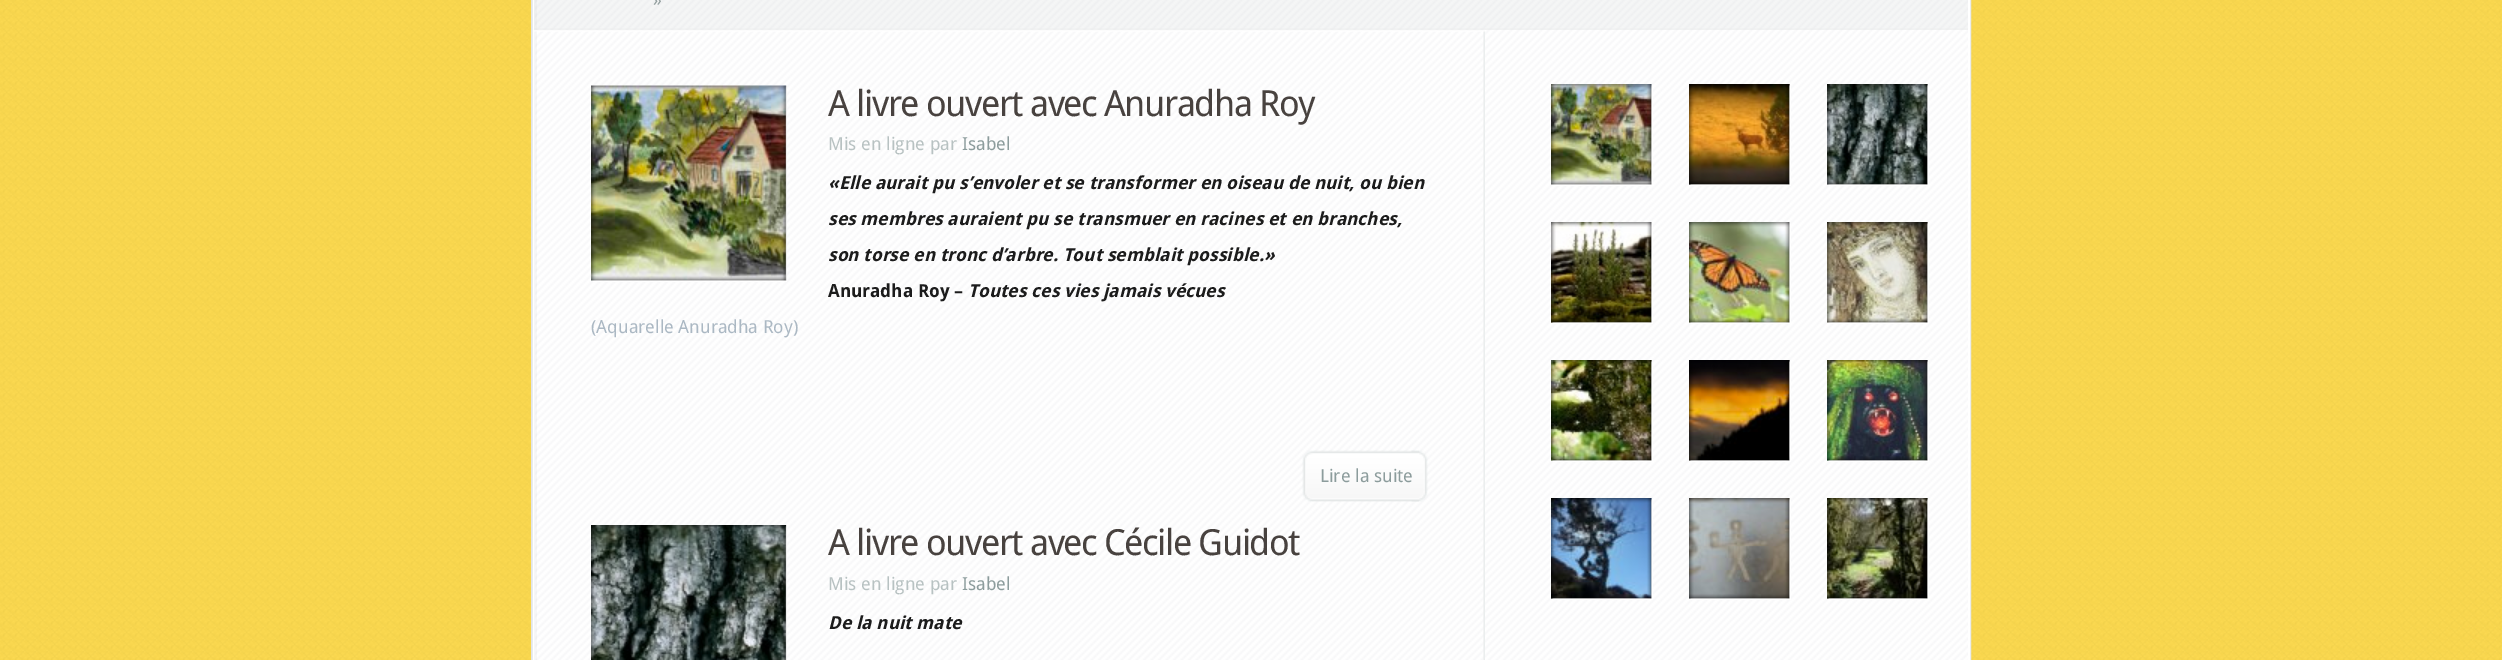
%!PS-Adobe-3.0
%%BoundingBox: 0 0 2502 660
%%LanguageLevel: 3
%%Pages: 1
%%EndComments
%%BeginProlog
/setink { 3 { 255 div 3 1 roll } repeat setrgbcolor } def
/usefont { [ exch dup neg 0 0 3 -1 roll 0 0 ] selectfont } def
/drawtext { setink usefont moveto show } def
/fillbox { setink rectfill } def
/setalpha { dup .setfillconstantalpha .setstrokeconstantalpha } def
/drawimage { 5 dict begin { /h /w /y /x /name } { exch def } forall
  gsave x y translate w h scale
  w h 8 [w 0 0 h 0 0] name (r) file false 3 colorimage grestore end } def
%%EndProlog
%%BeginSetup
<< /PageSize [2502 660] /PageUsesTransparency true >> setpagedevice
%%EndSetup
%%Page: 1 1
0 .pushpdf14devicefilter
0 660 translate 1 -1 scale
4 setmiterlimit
0 0 2502 660 255 220 79 fillbox
(assets/img1.rgb) 0 0 2502 660 drawimage
226 229 229 setink
2 setlinewidth
532 -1 1438 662 rectstroke
(assets/img2.rgb) 532 0 1436 660 drawimage
255 255 255 setink
534 -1 1435 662 rectstroke
0.03 setalpha
534 0 3 660 0 0 0 fillbox
1 setalpha
(assets/img3.rgb) 534 0 951 32 drawimage
(») 653 6 /DroidSans-Regular 18 146 158 158 drawtext
(assets/img4.rgb) 1483 31 2 629 drawimage
(assets/img5.rgb) 591 85 195 196 drawimage
(assets/img6.rgb) 591 85 196 197 drawimage
/DroidSans-Regular 36 usefont
72 66 63 setink
828 116 moveto -1.5 0 (A livre ouvert avec Anuradha Roy) ashow
(Mis en ligne par) 828 150 /DroidSans-Regular 18 184 194 194 drawtext
(Isabel) 962 150 /DroidSans-Regular 18 140 156 156 drawtext
(«Elle aurait pu s’envoler et se transformer en oiseau de nuit, ou bien) 828 189 /DroidSans-BoldItalic 18 28 28 28 drawtext
(ses membres auraient pu se transmuer en racines et en branches,) 828 225 /DroidSans-BoldItalic 18 28 28 28 drawtext
(son torse en tronc d’arbre. Tout semblait possible.») 828 261 /DroidSans-BoldItalic 18 28 28 28 drawtext
(Anuradha Roy –) 828 297 /DroidSans-Bold 18 28 28 28 drawtext
(Toutes ces vies jamais vécues) 968 297 /DroidSans-BoldItalic 18 28 28 28 drawtext
(\(Aquarelle Anuradha Roy\)) 591 333 /DroidSans-Regular 18 171 184 195 drawtext
(assets/img7.rgb) 1411 450 17 52 drawimage
(assets/img8.rgb) 1302 450 117 52 drawimage
(Lire la suite) 1320 482 /DroidSans-Regular 18 140 156 156 drawtext
(assets/img9.rgb) 591 525 195 135 drawimage
(assets/img10.rgb) 591 525 196 135 drawimage
/DroidSans-Regular 36 usefont
72 66 63 setink
828 555 moveto -1.5 0 (A livre ouvert avec Cécile Guidot) ashow
(Mis en ligne par) 828 590 /DroidSans-Regular 18 184 194 194 drawtext
(Isabel) 962 590 /DroidSans-Regular 18 140 156 156 drawtext
(De la nuit mate) 828 629 /DroidSans-BoldItalic 18 28 28 28 drawtext
(assets/img11.rgb) 1485 0 483 30 drawimage
(assets/img12.rgb) 1551 84 101 101 drawimage
(assets/img13.rgb) 1551 84 102 102 drawimage
(assets/img14.rgb) 1689 84 101 101 drawimage
(assets/img15.rgb) 1689 84 102 102 drawimage
(assets/img16.rgb) 1827 84 101 101 drawimage
(assets/img17.rgb) 1827 84 102 102 drawimage
(assets/img18.rgb) 1551 222 101 101 drawimage
(assets/img19.rgb) 1551 222 102 102 drawimage
(assets/img20.rgb) 1689 222 101 101 drawimage
(assets/img21.rgb) 1689 222 102 102 drawimage
(assets/img22.rgb) 1827 222 101 101 drawimage
(assets/img23.rgb) 1827 222 102 102 drawimage
(assets/img24.rgb) 1551 360 101 101 drawimage
(assets/img25.rgb) 1551 360 102 102 drawimage
(assets/img26.rgb) 1689 360 101 101 drawimage
(assets/img27.rgb) 1689 360 102 102 drawimage
(assets/img28.rgb) 1827 360 101 101 drawimage
(assets/img29.rgb) 1827 360 102 102 drawimage
(assets/img30.rgb) 1551 498 101 101 drawimage
(assets/img31.rgb) 1551 498 102 102 drawimage
(assets/img32.rgb) 1689 498 101 101 drawimage
(assets/img33.rgb) 1689 498 102 102 drawimage
(assets/img34.rgb) 1827 498 101 101 drawimage
(assets/img35.rgb) 1827 498 102 102 drawimage
.poppdf14devicefilter showpage
%%EOF
